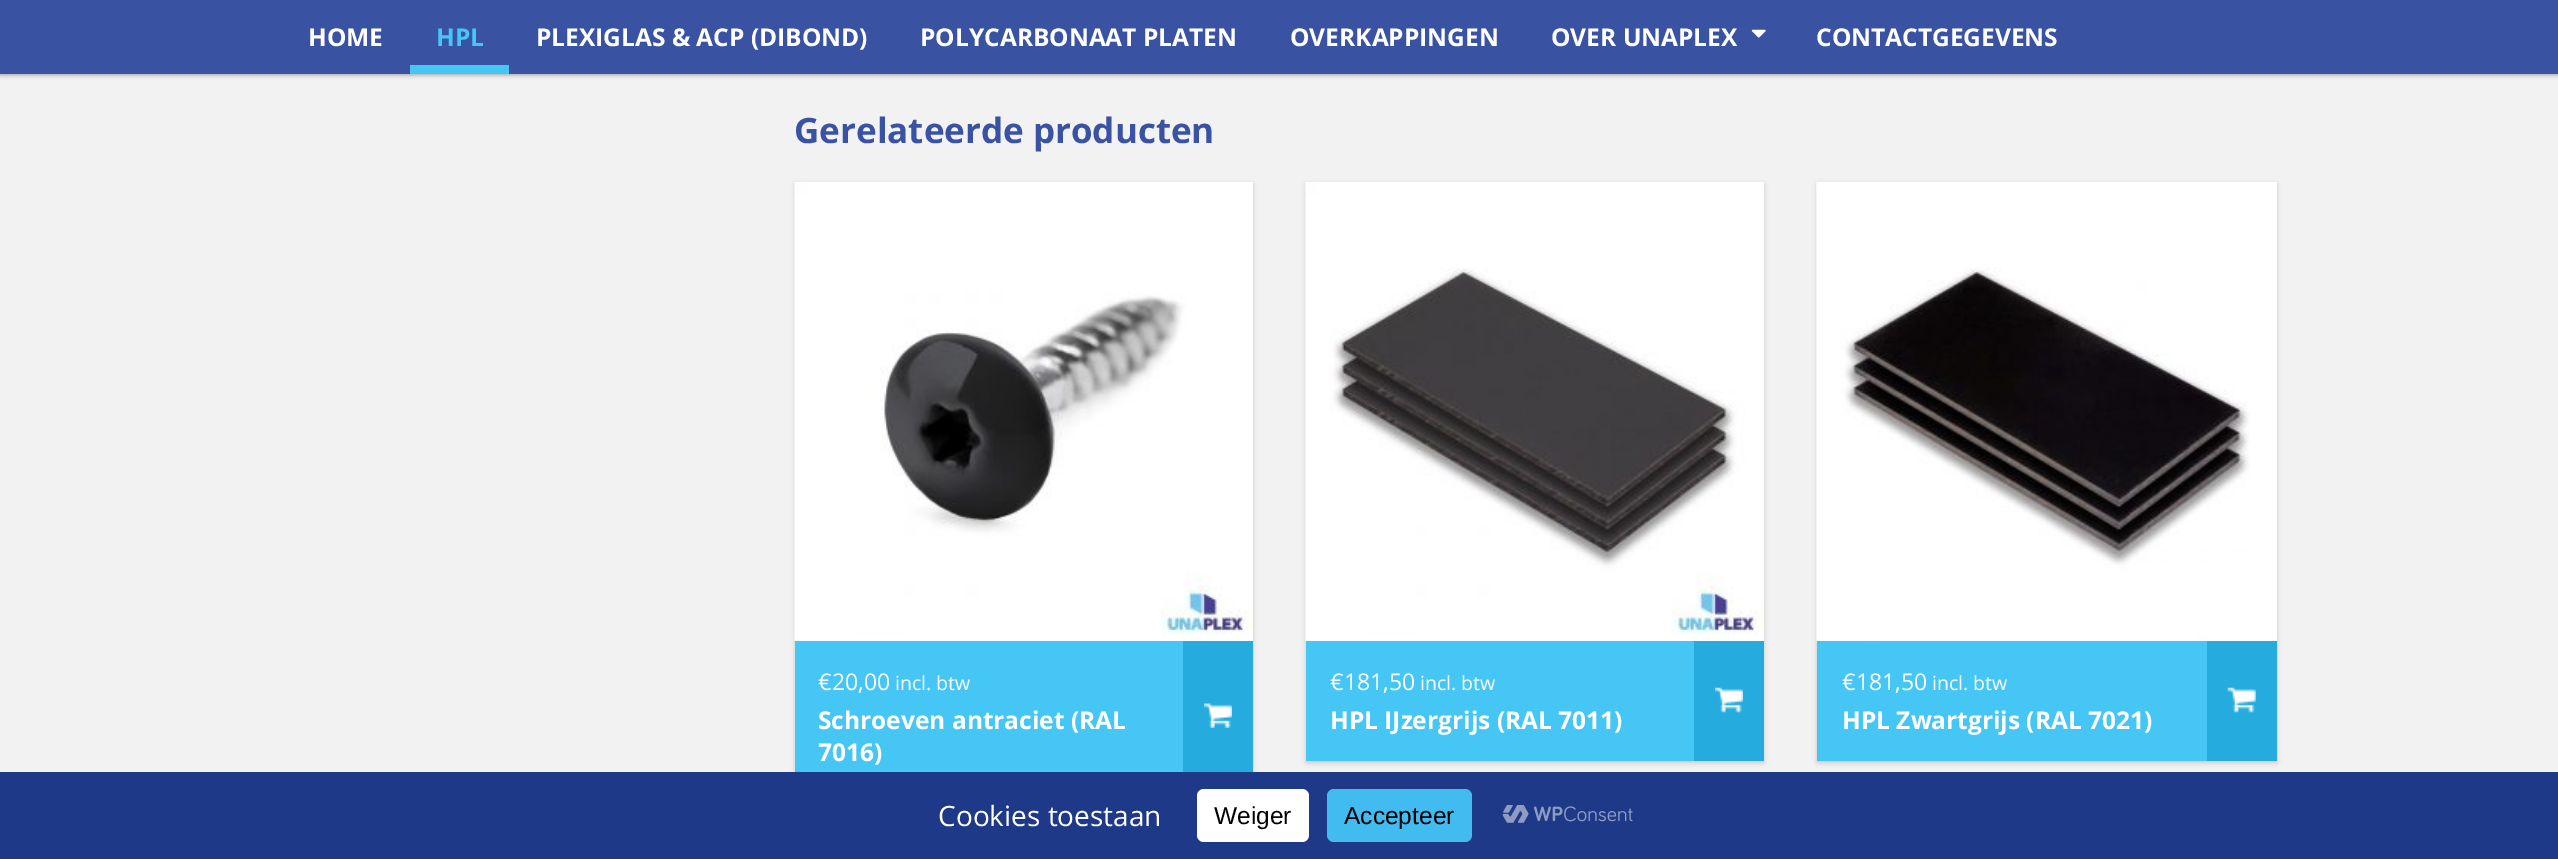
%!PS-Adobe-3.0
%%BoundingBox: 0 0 2558 859
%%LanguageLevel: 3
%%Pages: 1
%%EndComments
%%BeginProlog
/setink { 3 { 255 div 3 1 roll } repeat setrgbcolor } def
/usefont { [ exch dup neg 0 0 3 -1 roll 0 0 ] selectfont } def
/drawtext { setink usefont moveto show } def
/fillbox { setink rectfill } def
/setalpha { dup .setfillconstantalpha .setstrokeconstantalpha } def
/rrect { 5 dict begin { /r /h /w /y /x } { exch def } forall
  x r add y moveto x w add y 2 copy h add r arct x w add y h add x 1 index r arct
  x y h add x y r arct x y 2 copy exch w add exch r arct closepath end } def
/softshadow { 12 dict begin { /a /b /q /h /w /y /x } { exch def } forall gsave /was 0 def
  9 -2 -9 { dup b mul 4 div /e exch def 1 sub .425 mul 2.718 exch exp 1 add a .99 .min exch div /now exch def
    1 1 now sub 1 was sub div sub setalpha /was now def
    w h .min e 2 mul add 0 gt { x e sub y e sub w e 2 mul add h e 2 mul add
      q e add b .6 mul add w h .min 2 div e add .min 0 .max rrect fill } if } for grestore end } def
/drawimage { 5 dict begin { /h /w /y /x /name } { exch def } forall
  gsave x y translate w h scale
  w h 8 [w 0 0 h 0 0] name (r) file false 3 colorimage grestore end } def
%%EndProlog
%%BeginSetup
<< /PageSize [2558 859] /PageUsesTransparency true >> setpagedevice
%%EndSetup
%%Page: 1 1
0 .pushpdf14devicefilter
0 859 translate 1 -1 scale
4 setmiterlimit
0 0 2558 859 242 242 242 fillbox
0 0 0 setink
0 2 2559 73 0 2 0.24 softshadow
0 2 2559 73 0 2.5 0.12 softshadow
0 0 2558 74 57 82 162 fillbox
(HOME) 308 46 /OpenSans-Bold 24.5 255 255 255 drawtext
410 65 99 9 70 198 245 fillbox
(HPL) 436 46 /OpenSans-Bold 24.5 70 198 245 drawtext
(PLEXIGLAS & ACP \(DIBOND\)) 536 46 /OpenSans-Bold 24.5 255 255 255 drawtext
(POLYCARBONAAT PLATEN) 920 46 /OpenSans-Bold 24.5 255 255 255 drawtext
(OVERKAPPINGEN) 1290 46 /OpenSans-Bold 24.5 255 255 255 drawtext
(OVER UNAPLEX) 1551 46 /OpenSans-Bold 24.5 255 255 255 drawtext
(assets/img1.rgb) 1751 29 15 9 drawimage
(CONTACTGEGEVENS) 1816 46 /OpenSans-Bold 24.5 255 255 255 drawtext
(Gerelateerde producten) 794 143 /OpenSans-Bold 35 58 82 164 drawtext
0 0 0 setink
795 184 458 611 0 2.5 0.16 softshadow
795 640 458 1 255 255 255 fillbox
(assets/img2.rgb) 794 182 459 459 drawimage
795 641 388 131 70 198 245 fillbox
(€20,00) 818 690 /OpenSans-Regular 23 255 255 255 drawtext
(incl. btw) 895 690 /OpenSans-Regular 19.5 255 255 255 drawtext
1183 641 70 131 37 171 222 fillbox
(assets/img3.rgb) 1204 703 28 25 drawimage
(Schroeven antraciet \(RAL) 818 729 /OpenSans-Bold 24.5 255 255 255 drawtext
(7016\)) 818 761 /OpenSans-Bold 24.5 255 255 255 drawtext
0 0 0 setink
1306 184 458 579 0 2.5 0.16 softshadow
1306 640 458 1 255 255 255 fillbox
(assets/img4.rgb) 1305 182 459 459 drawimage
1306 641 388 120 70 198 245 fillbox
(€181,50) 1330 690 /OpenSans-Regular 23 255 255 255 drawtext
(incl. btw) 1420 690 /OpenSans-Regular 19.5 255 255 255 drawtext
1694 641 70 120 37 171 222 fillbox
(assets/img5.rgb) 1715 687 28 26 drawimage
(HPL IJzergrijs \(RAL 7011\)) 1330 729 /OpenSans-Bold 24.5 255 255 255 drawtext
0 0 0 setink
1817 184 460 579 0 2.5 0.16 softshadow
1817 182 460 459 255 255 255 fillbox
(assets/img6.rgb) 1816 182 435 459 drawimage
1817 641 390 120 70 198 245 fillbox
(€181,50) 1842 690 /OpenSans-Regular 23 255 255 255 drawtext
(incl. btw) 1932 690 /OpenSans-Regular 19.5 255 255 255 drawtext
2207 641 70 120 37 171 222 fillbox
(assets/img7.rgb) 2227 687 29 26 drawimage
(HPL Zwartgrijs \(RAL 7021\)) 1842 729 /OpenSans-Bold 24.5 255 255 255 drawtext
0 772 2558 87 29 57 136 fillbox
(Cookies toestaan) 938 826 /OpenSans-Regular 28 255 255 255 drawtext
1197 789 112 53 7 rrect fill
(Weiger) 1214 824 /LiberationSans-Regular 24.5 0 0 0 drawtext
65 187 240 setink
1327 789 145 53 7 rrect fill
(Accepteer) 1344 824 /LiberationSans-Regular 24.5 0 0 0 drawtext
(assets/img8.rgb) 1502 805 131 18 drawimage
.poppdf14devicefilter showpage
%%EOF
